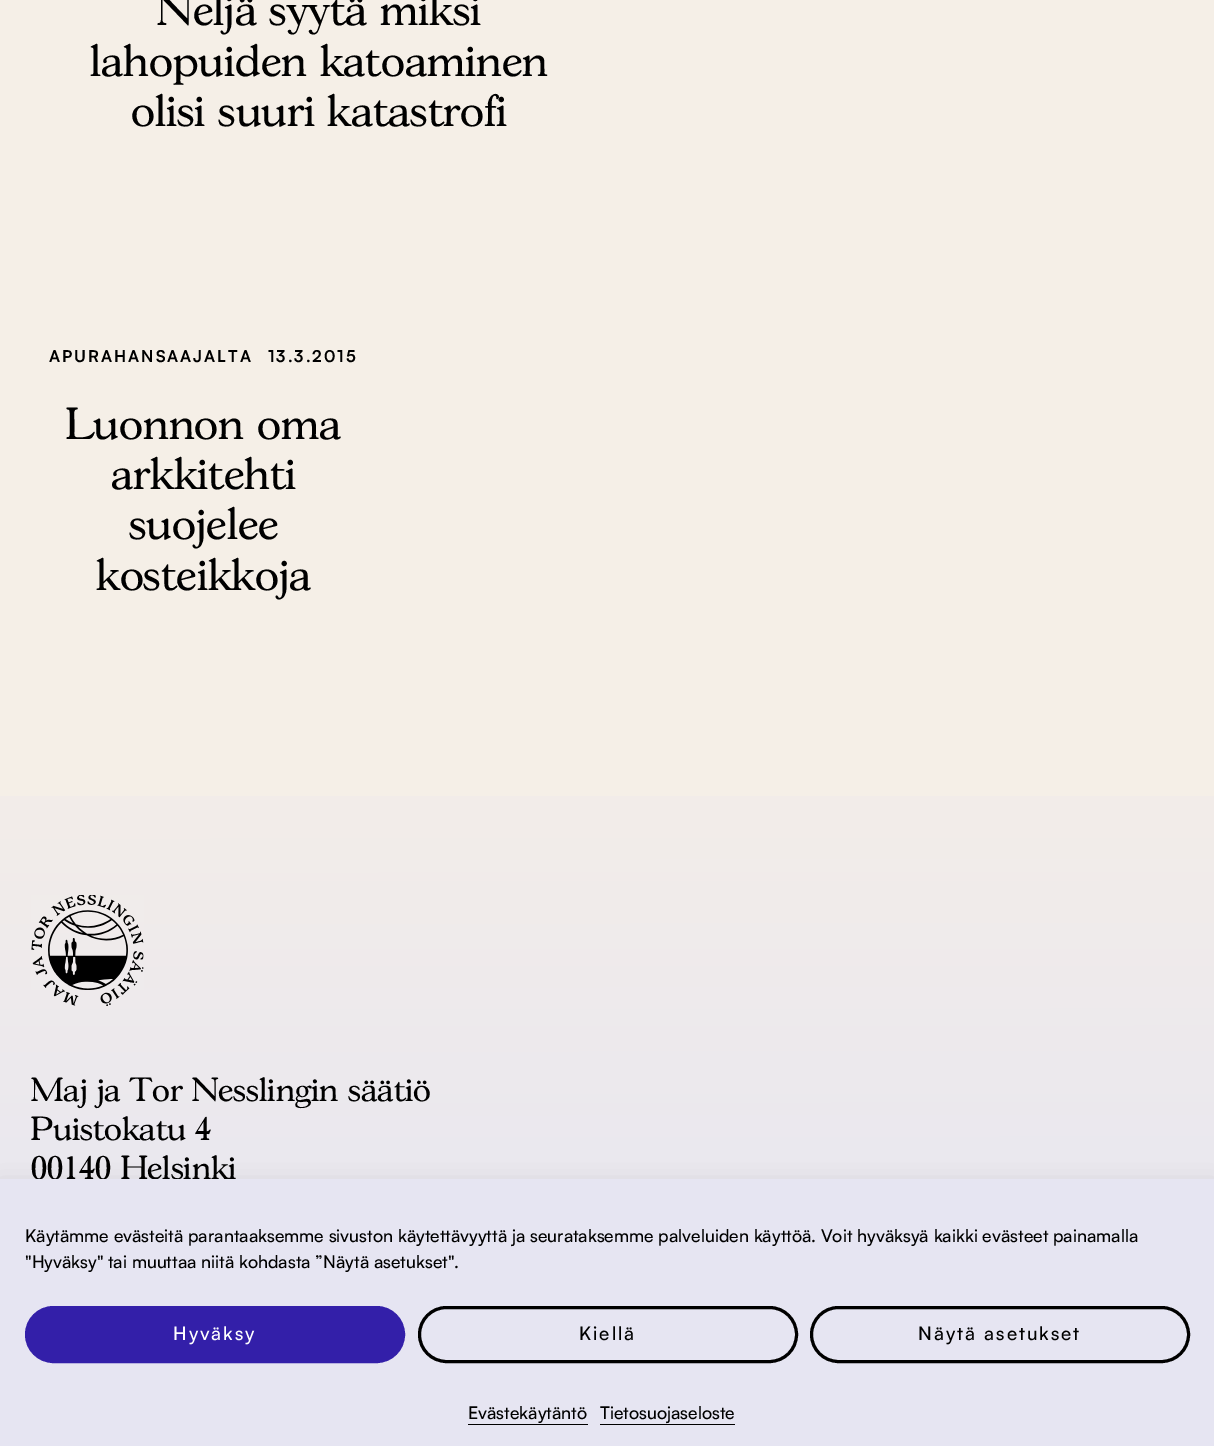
%!PS-Adobe-3.0
%%BoundingBox: 0 0 1214 1446
%%LanguageLevel: 3
%%Pages: 1
%%EndComments
%%BeginProlog
/setink { 3 { 255 div 3 1 roll } repeat setrgbcolor } def
/usefont { [ exch dup neg 0 0 3 -1 roll 0 0 ] selectfont } def
/drawtext { setink usefont moveto show } def
/fillbox { setink rectfill } def
/setalpha { dup .setfillconstantalpha .setstrokeconstantalpha } def
/rrect { 5 dict begin { /r /h /w /y /x } { exch def } forall
  x r add y moveto x w add y 2 copy h add r arct x w add y h add x 1 index r arct
  x y h add x y r arct x y 2 copy exch w add exch r arct closepath end } def
/softshadow { 12 dict begin { /a /b /q /h /w /y /x } { exch def } forall gsave /was 0 def
  9 -2 -9 { dup b mul 4 div /e exch def 1 sub .425 mul 2.718 exch exp 1 add a .99 .min exch div /now exch def
    1 1 now sub 1 was sub div sub setalpha /was now def
    w h .min e 2 mul add 0 gt { x e sub y e sub w e 2 mul add h e 2 mul add
      q e add b .6 mul add w h .min 2 div e add .min 0 .max rrect fill } if } for grestore end } def
/drawimage { 5 dict begin { /h /w /y /x /name } { exch def } forall
  gsave x y translate w h scale
  w h 8 [w 0 0 h 0 0] name (r) file false 3 colorimage grestore end } def
%%EndProlog
%%BeginSetup
<< /PageSize [1214 1446] /PageUsesTransparency true >> setpagedevice
%%EndSetup
%%Page: 1 1
0 .pushpdf14devicefilter
0 1446 translate 1 -1 scale
4 setmiterlimit
0 0 1214 1446 245 239 231 fillbox
(Neljä syytä miksi) 157 25 /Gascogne-Regular 43.75 0 0 0 drawtext
(lahopuiden katoaminen) 90 76 /Gascogne-Regular 43.75 0 0 0 drawtext
(olisi suuri katastrofi) 131 126 /Gascogne-Regular 43.75 0 0 0 drawtext
/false-Bold 16.25 usefont
49 362 moveto 2 0 (APURAHANSAAJALTA) ashow
268 362 moveto 2 0 (13.3.2015) ashow
(Luonnon oma) 66 439 /Gascogne-Regular 43.75 0 0 0 drawtext
(arkkitehti) 111 489 /Gascogne-Regular 43.75 0 0 0 drawtext
(suojelee) 129 539 /Gascogne-Regular 43.75 0 0 0 drawtext
(kosteikkoja) 96 590 /Gascogne-Regular 43.75 0 0 0 drawtext
gsave 0 796 moveto 1214 796 lineto 1214 1179 lineto 0 1179 lineto closepath clip newpath
<< /ShadingType 2 /ColorSpace /DeviceRGB /Coords [607 682 608 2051] /Extend [true true] /Function << /FunctionType 3 /Domain [0 1] /Functions [<< /FunctionType 2 /Domain [0 1] /C0 [0.961 0.937 0.906] /C1 [0.902 0.898 0.949] /N 1 >> << /FunctionType 2 /Domain [0 1] /C0 [0.902 0.898 0.949] /C1 [0.902 0.898 0.949] /N 1 >>] /Bounds [0.5] /Encode [0 1 0 1] >> >> shfill grestore
(assets/img1.rgb) 31 895 113 111 drawimage
(Maj ja Tor Nesslingin säätiö) 31 1101 /Gascogne-Regular 32.5 0 0 0 drawtext
(Puistokatu 4) 31 1140 /Gascogne-Regular 32.5 0 0 0 drawtext
(00140 Helsinki) 31 1179 /Gascogne-Regular 32.5 0 0 0 drawtext
0 1191 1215 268 0 12.5 0.19 softshadow
0 1179 1214 267 230 229 242 fillbox
(Käytämme evästeitä parantaaksemme sivuston käytettävyyttä ja seurataksemme palveluiden käyttöä. Voit hyväksyä kaikki evästeet painamalla) 25 1242 /Satoshi-Medium 17.5 0 0 0 drawtext
("Hyväksy" tai muuttaa niitä kohdasta ”Näytä asetukset".) 25 1268 /Satoshi-Medium 17.5 0 0 0 drawtext
51 31 169 setink
26.5 1307.5 377 54 27 rrect gsave fill grestore
3 setlinewidth
stroke
/Satoshi-Medium 18.75 usefont
255 255 255 setink
173 1340 moveto 2 0 (Hyväksy) ashow
0 0 0 setink
419.5 1307.5 377 54 27 rrect stroke
579 1340 moveto 2 0 (Kiellä) ashow
811.5 1307.5 377 54 27 rrect stroke
918 1340 moveto 2 0 (Näytä asetukset) ashow
(Evästekäytäntö) 468 1419 /Satoshi-Medium 17.5 0 0 0 drawtext
468 1424 120 1 0 0 0 fillbox
(Tietosuojaseloste) 600 1419 /Satoshi-Medium 17.5 0 0 0 drawtext
600 1424 135 1 0 0 0 fillbox
.poppdf14devicefilter showpage
%%EOF
